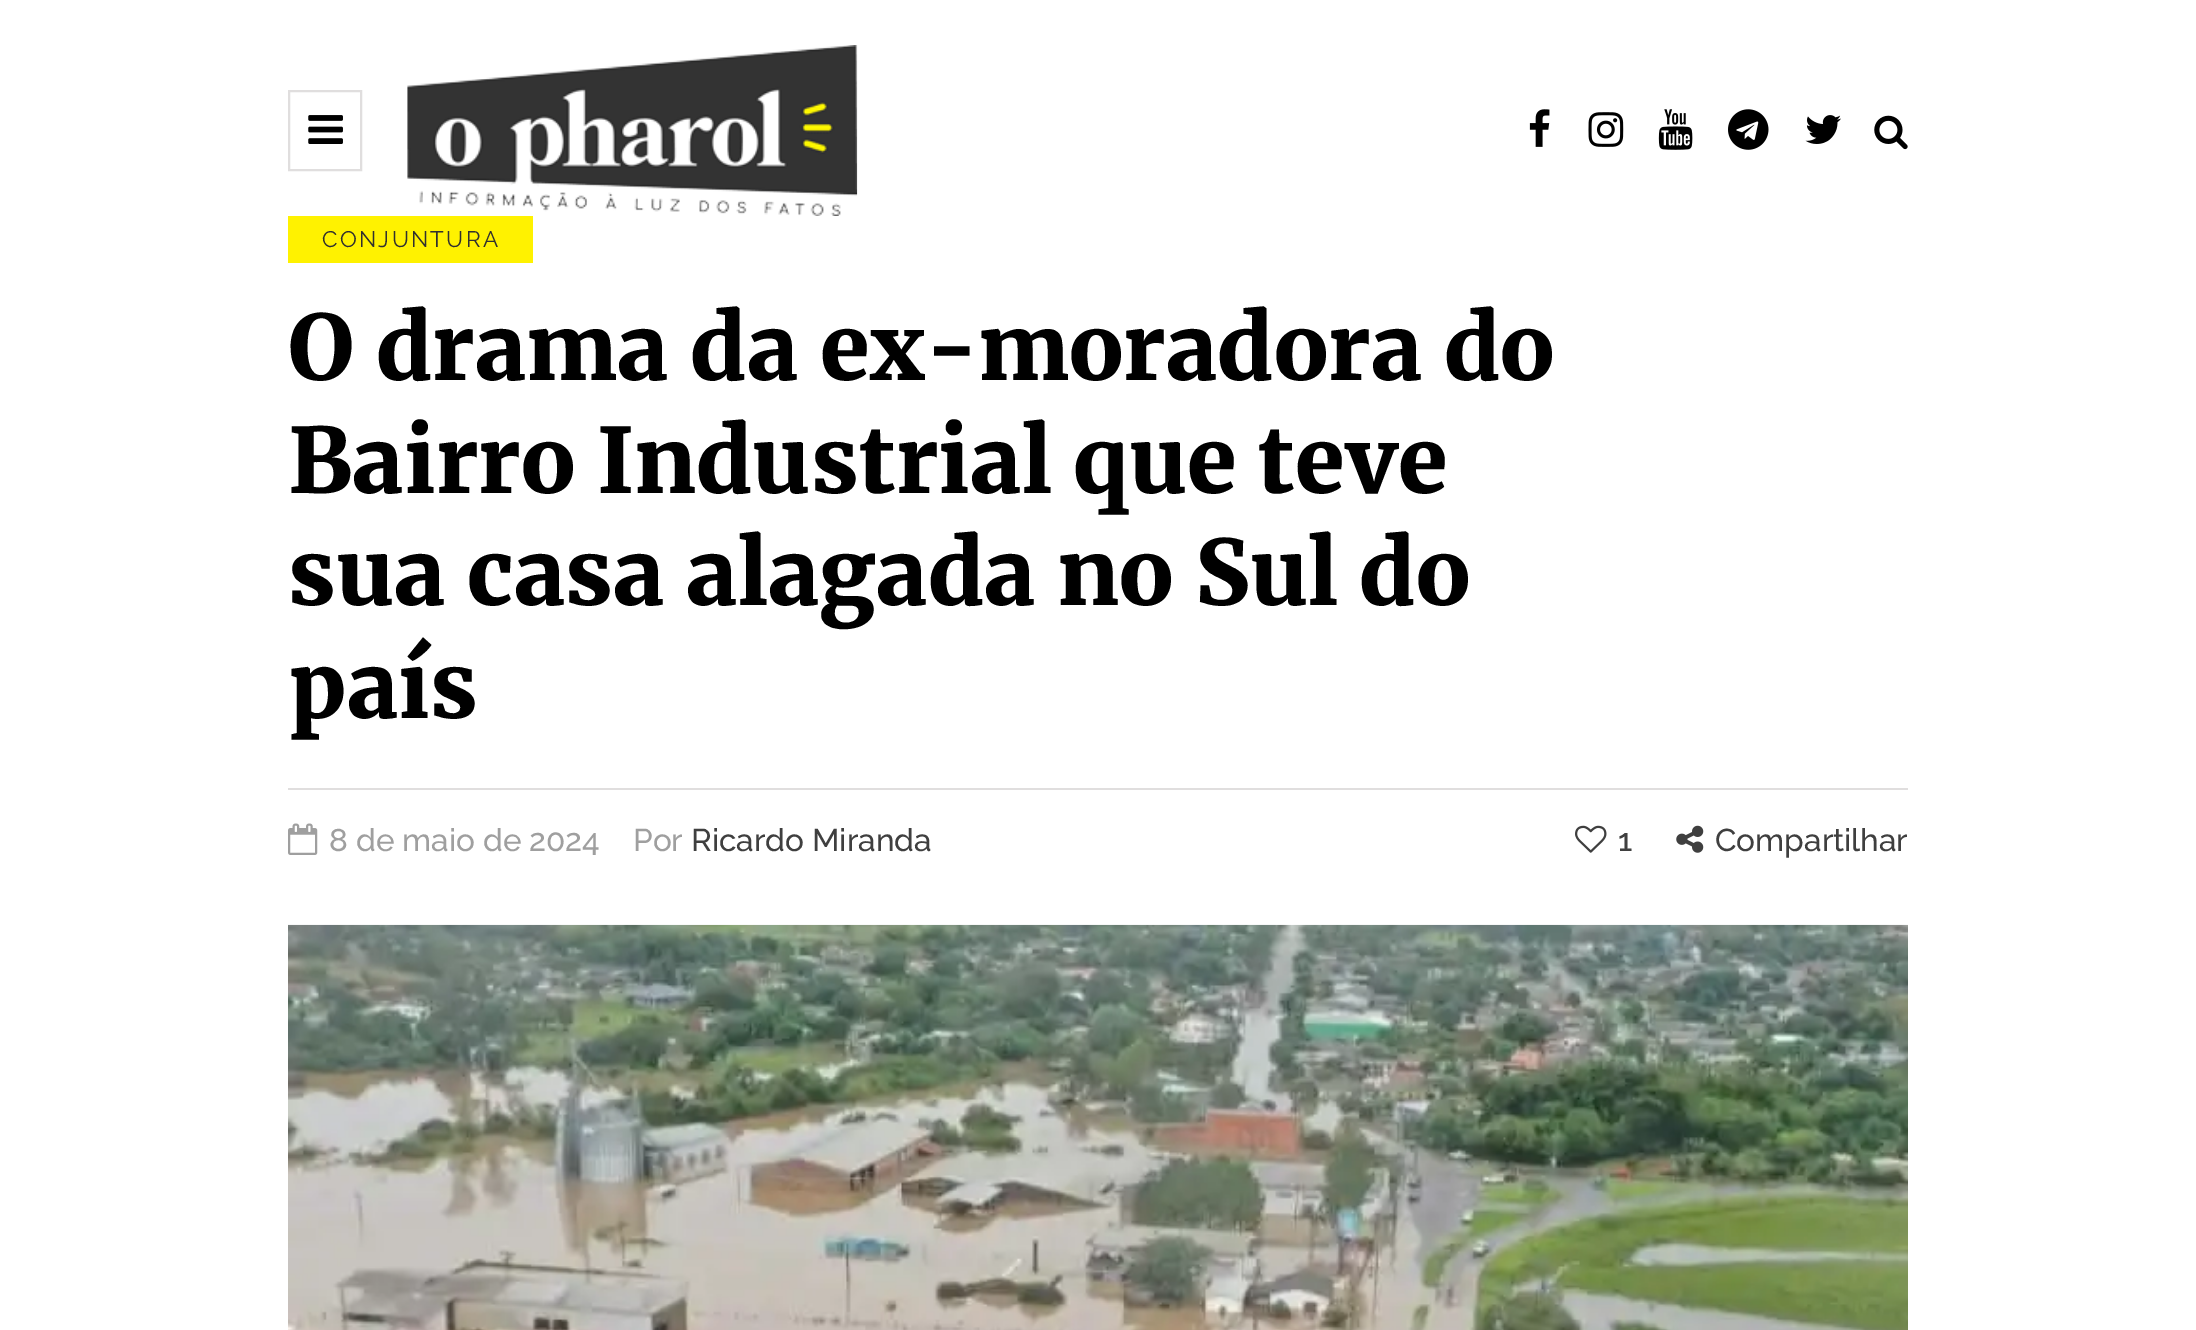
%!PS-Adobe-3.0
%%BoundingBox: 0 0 2196 1330
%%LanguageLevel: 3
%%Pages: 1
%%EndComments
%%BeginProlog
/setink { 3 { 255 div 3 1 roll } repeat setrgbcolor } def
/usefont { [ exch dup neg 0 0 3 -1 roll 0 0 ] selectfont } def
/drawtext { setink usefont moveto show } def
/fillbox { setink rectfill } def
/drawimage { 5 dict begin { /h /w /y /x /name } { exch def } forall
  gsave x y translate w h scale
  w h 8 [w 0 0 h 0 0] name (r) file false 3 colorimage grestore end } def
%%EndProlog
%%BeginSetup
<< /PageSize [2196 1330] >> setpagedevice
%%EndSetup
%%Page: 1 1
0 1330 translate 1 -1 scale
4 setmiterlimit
0 0 2196 1330 255 255 255 fillbox
224 222 222 setink
2 setlinewidth
289 91 72 79 rectstroke
(assets/img1.rgb) 308 115 35 29 drawimage
(assets/img2.rgb) 407 45 451 171 drawimage
(assets/img3.rgb) 1529 109 21 38 drawimage
(assets/img4.rgb) 1588 112 36 35 drawimage
(assets/img5.rgb) 1658 109 35 41 drawimage
(assets/img6.rgb) 1728 109 41 41 drawimage
(assets/img7.rgb) 1805 115 36 29 drawimage
(assets/img8.rgb) 1874 115 34 35 drawimage
288 216 245 47 255 242 0 fillbox
/Raleway-Regular 22.5 usefont
48 48 48 setink
322 247 moveto 2.25 0 (CONJUNTURA) ashow
(O drama da ex-moradora do) 288 380 /Merriweather-Black 90 0 0 0 drawtext
(Bairro Industrial que teve) 288 493 /Merriweather-Black 90 0 0 0 drawtext
(sua casa alagada no Sul do) 288 605 /Merriweather-Black 90 0 0 0 drawtext
(país) 288 718 /Merriweather-Black 90 0 0 0 drawtext
288 788 1620 2 224 222 222 fillbox
(assets/img9.rgb) 288 823 30 32 drawimage
(8 de maio de 2024) 329 851 /Raleway-Medium 31.5 159 159 159 drawtext
(Por) 633 851 /Raleway-Medium 31.5 159 159 159 drawtext
(Ricardo Miranda) 691 851 /Raleway-Medium 31.5 63 63 63 drawtext
(assets/img10.rgb) 1575 825 32 28 drawimage
(1) 1618 851 /Raleway-Medium 31.5 63 63 63 drawtext
(assets/img11.rgb) 1676 825 28 28 drawimage
(Compartilhar) 1715 851 /Raleway-Medium 31.5 63 63 63 drawtext
(assets/img12.rgb) 288 924 1620 406 drawimage
showpage
%%EOF
